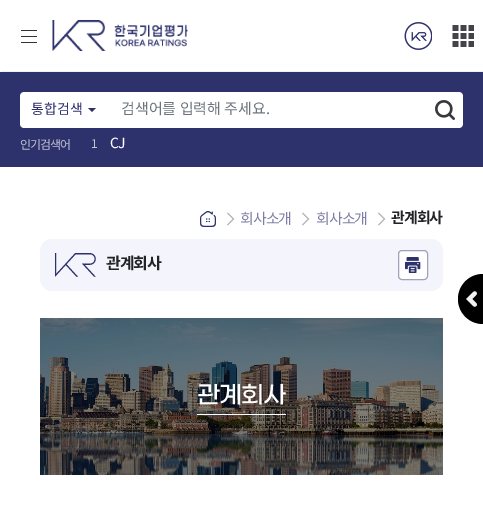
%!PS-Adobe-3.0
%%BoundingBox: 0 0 483 525
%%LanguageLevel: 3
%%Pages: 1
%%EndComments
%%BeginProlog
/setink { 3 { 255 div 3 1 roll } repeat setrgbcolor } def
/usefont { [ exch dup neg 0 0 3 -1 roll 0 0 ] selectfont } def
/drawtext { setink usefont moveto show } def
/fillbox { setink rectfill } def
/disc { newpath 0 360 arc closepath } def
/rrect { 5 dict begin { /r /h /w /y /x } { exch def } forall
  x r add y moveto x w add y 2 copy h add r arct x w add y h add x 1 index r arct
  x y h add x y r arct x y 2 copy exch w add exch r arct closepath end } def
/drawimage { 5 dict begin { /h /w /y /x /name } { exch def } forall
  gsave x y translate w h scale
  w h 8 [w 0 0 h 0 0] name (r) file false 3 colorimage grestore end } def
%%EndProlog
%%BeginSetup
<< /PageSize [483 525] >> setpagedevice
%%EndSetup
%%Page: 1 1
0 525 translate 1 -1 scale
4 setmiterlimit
0 0 483 525 255 255 255 fillbox
1 71 482 1 240 240 237 fillbox
21 30 16 1 51 51 51 fillbox
21 36 16 1 51 51 51 fillbox
21 42 16 1 51 51 51 fillbox
(assets/img1.rgb) 52 20 136 31 drawimage
(assets/img2.rgb) 404 22 28 28 drawimage
(assets/img3.rgb) 452 25 22 22 drawimage
0 72 483 95 45 49 108 fillbox
255 255 255 setink
24 92 moveto 111 92 lineto 111 128 lineto 24 128 lineto 22 128 20 126 20 124 curveto 20 96 lineto 20 94 22 92 24 92 curveto closepath fill
(통합검색) 31 114 /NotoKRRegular-Regular 14 45 49 108 drawtext
88 108 moveto 96 108 lineto 92 112 lineto closepath fill
111 92 316 36 255 255 255 fillbox
(검색어를 입력해 주세요.) 121 114 /NotoKRRegular-Regular 15 108 117 125 drawtext
255 255 255 setink
427 92 moveto 459 92 lineto 461 92 463 94 463 96 curveto 463 124 lineto 463 126 461 128 459 128 curveto 427 128 lineto closepath fill
(assets/img4.rgb) 435 100 20 20 drawimage
/NotoKRRegular-Regular 12 usefont
192 193 211 setink
20 149 moveto -1 0 (인기검색어) ashow
197 197 204 setink
91 148 moveto -1 0 (1) ashow
/NotoKRRegular-Regular 14 usefont
255 255 255 setink
110 148 moveto -1 0 (CJ) ashow
(assets/img5.rgb) 200 211 16 16 drawimage
173 174 179 setink
227.5 225 moveto 233.5 219 lineto 227.5 213 lineto stroke
/NotoKRRegular-Regular 15 usefont
125 127 166 setink
240 224 moveto -1 0 (회사소개) ashow
173 174 179 setink
302.5 225 moveto 308.5 219 lineto 302.5 213 lineto stroke
125 127 166 setink
316 224 moveto -1 0 (회사소개) ashow
173 174 179 setink
378.5 225 moveto 384.5 219 lineto 378.5 213 lineto stroke
/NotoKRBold-Bold 15 usefont
35 35 39 setink
391 223 moveto -1 0 (관계회사) ashow
244 245 252 setink
40 239 403 52 12 rrect fill
(assets/img6.rgb) 55 253 41 24 drawimage
/NotoKRBold-Bold 16 usefont
35 35 39 setink
106 269 moveto -1 0 (관계회사) ashow
255 255 255 setink
398.5 250.5 29 29 3.5 rrect gsave fill grestore
160 162 188 setink
stroke
(assets/img7.rgb) 405 257 16 16 drawimage
(assets/img8.rgb) 40 318 403 157 drawimage
197 414 89 1 255 255 255 fillbox
/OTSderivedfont-Medium 24 usefont
197 402 moveto -1 0 (관계회사) ashow
0 0 0 setink
483 299 25 disc fill
(assets/img9.rgb) 466 291 11 16 drawimage
showpage
%%EOF
